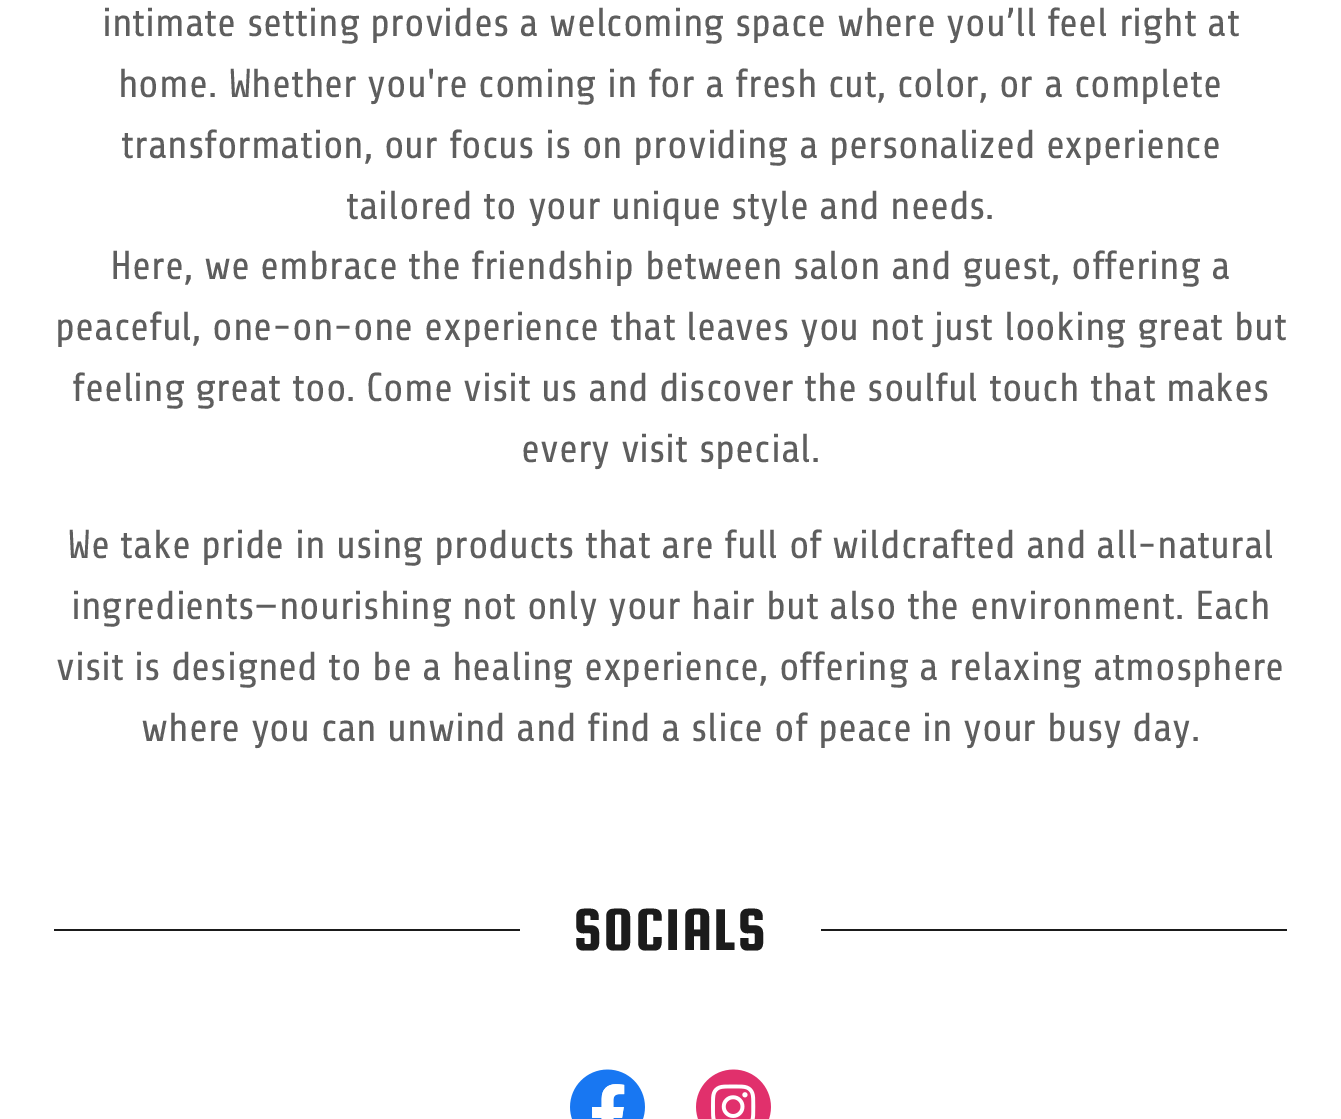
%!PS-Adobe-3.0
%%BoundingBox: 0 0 1341 1119
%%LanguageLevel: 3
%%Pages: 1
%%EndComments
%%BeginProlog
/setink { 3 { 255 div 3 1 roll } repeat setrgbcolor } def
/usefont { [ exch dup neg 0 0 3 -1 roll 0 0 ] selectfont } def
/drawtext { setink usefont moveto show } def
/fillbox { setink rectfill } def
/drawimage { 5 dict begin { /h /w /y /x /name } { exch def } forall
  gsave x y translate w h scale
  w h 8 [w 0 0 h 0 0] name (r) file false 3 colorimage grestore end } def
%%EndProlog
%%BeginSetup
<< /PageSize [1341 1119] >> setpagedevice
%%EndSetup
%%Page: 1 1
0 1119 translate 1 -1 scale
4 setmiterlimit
0 0 1341 1119 255 255 255 fillbox
(intimate setting provides a welcoming space where you’ll feel right at) 102 36 /Share-Regular 40.5 94 94 94 drawtext
(home. Whether you're coming in for a fresh cut, color, or a complete) 118 97 /Share-Regular 40.5 94 94 94 drawtext
(transformation, our focus is on providing a personalized experience) 121 158 /Share-Regular 40.5 94 94 94 drawtext
(tailored to your unique style and needs.) 346 219 /Share-Regular 40.5 94 94 94 drawtext
(Here, we embrace the friendship between salon and guest, offering a) 110 279 /Share-Regular 40.5 94 94 94 drawtext
(peaceful, one-on-one experience that leaves you not just looking great but) 55 340 /Share-Regular 40.5 94 94 94 drawtext
(feeling great too. Come visit us and discover the soulful touch that makes) 72 401 /Share-Regular 40.5 94 94 94 drawtext
(every visit special.) 521 462 /Share-Regular 40.5 94 94 94 drawtext
(We take pride in using products that are full of wildcrafted and all-natural) 67 558 /Share-Regular 40.5 94 94 94 drawtext
(ingredients—nourishing not only your hair but also the environment. Each) 71 619 /Share-Regular 40.5 94 94 94 drawtext
(visit is designed to be a healing experience, offering a relaxing atmosphere) 56 680 /Share-Regular 40.5 94 94 94 drawtext
(where you can unwind and find a slice of peace in your busy day.) 141 741 /Share-Regular 40.5 94 94 94 drawtext
54 929 466 2 27 27 27 fillbox
/SquadaOne-Regular 63 usefont
573 950 moveto 1.25 0 (SOCIALS) ashow
821 929 466 2 27 27 27 fillbox
(assets/img1.rgb) 570 1069 75 50 drawimage
(assets/img2.rgb) 696 1069 75 50 drawimage
showpage
%%EOF
